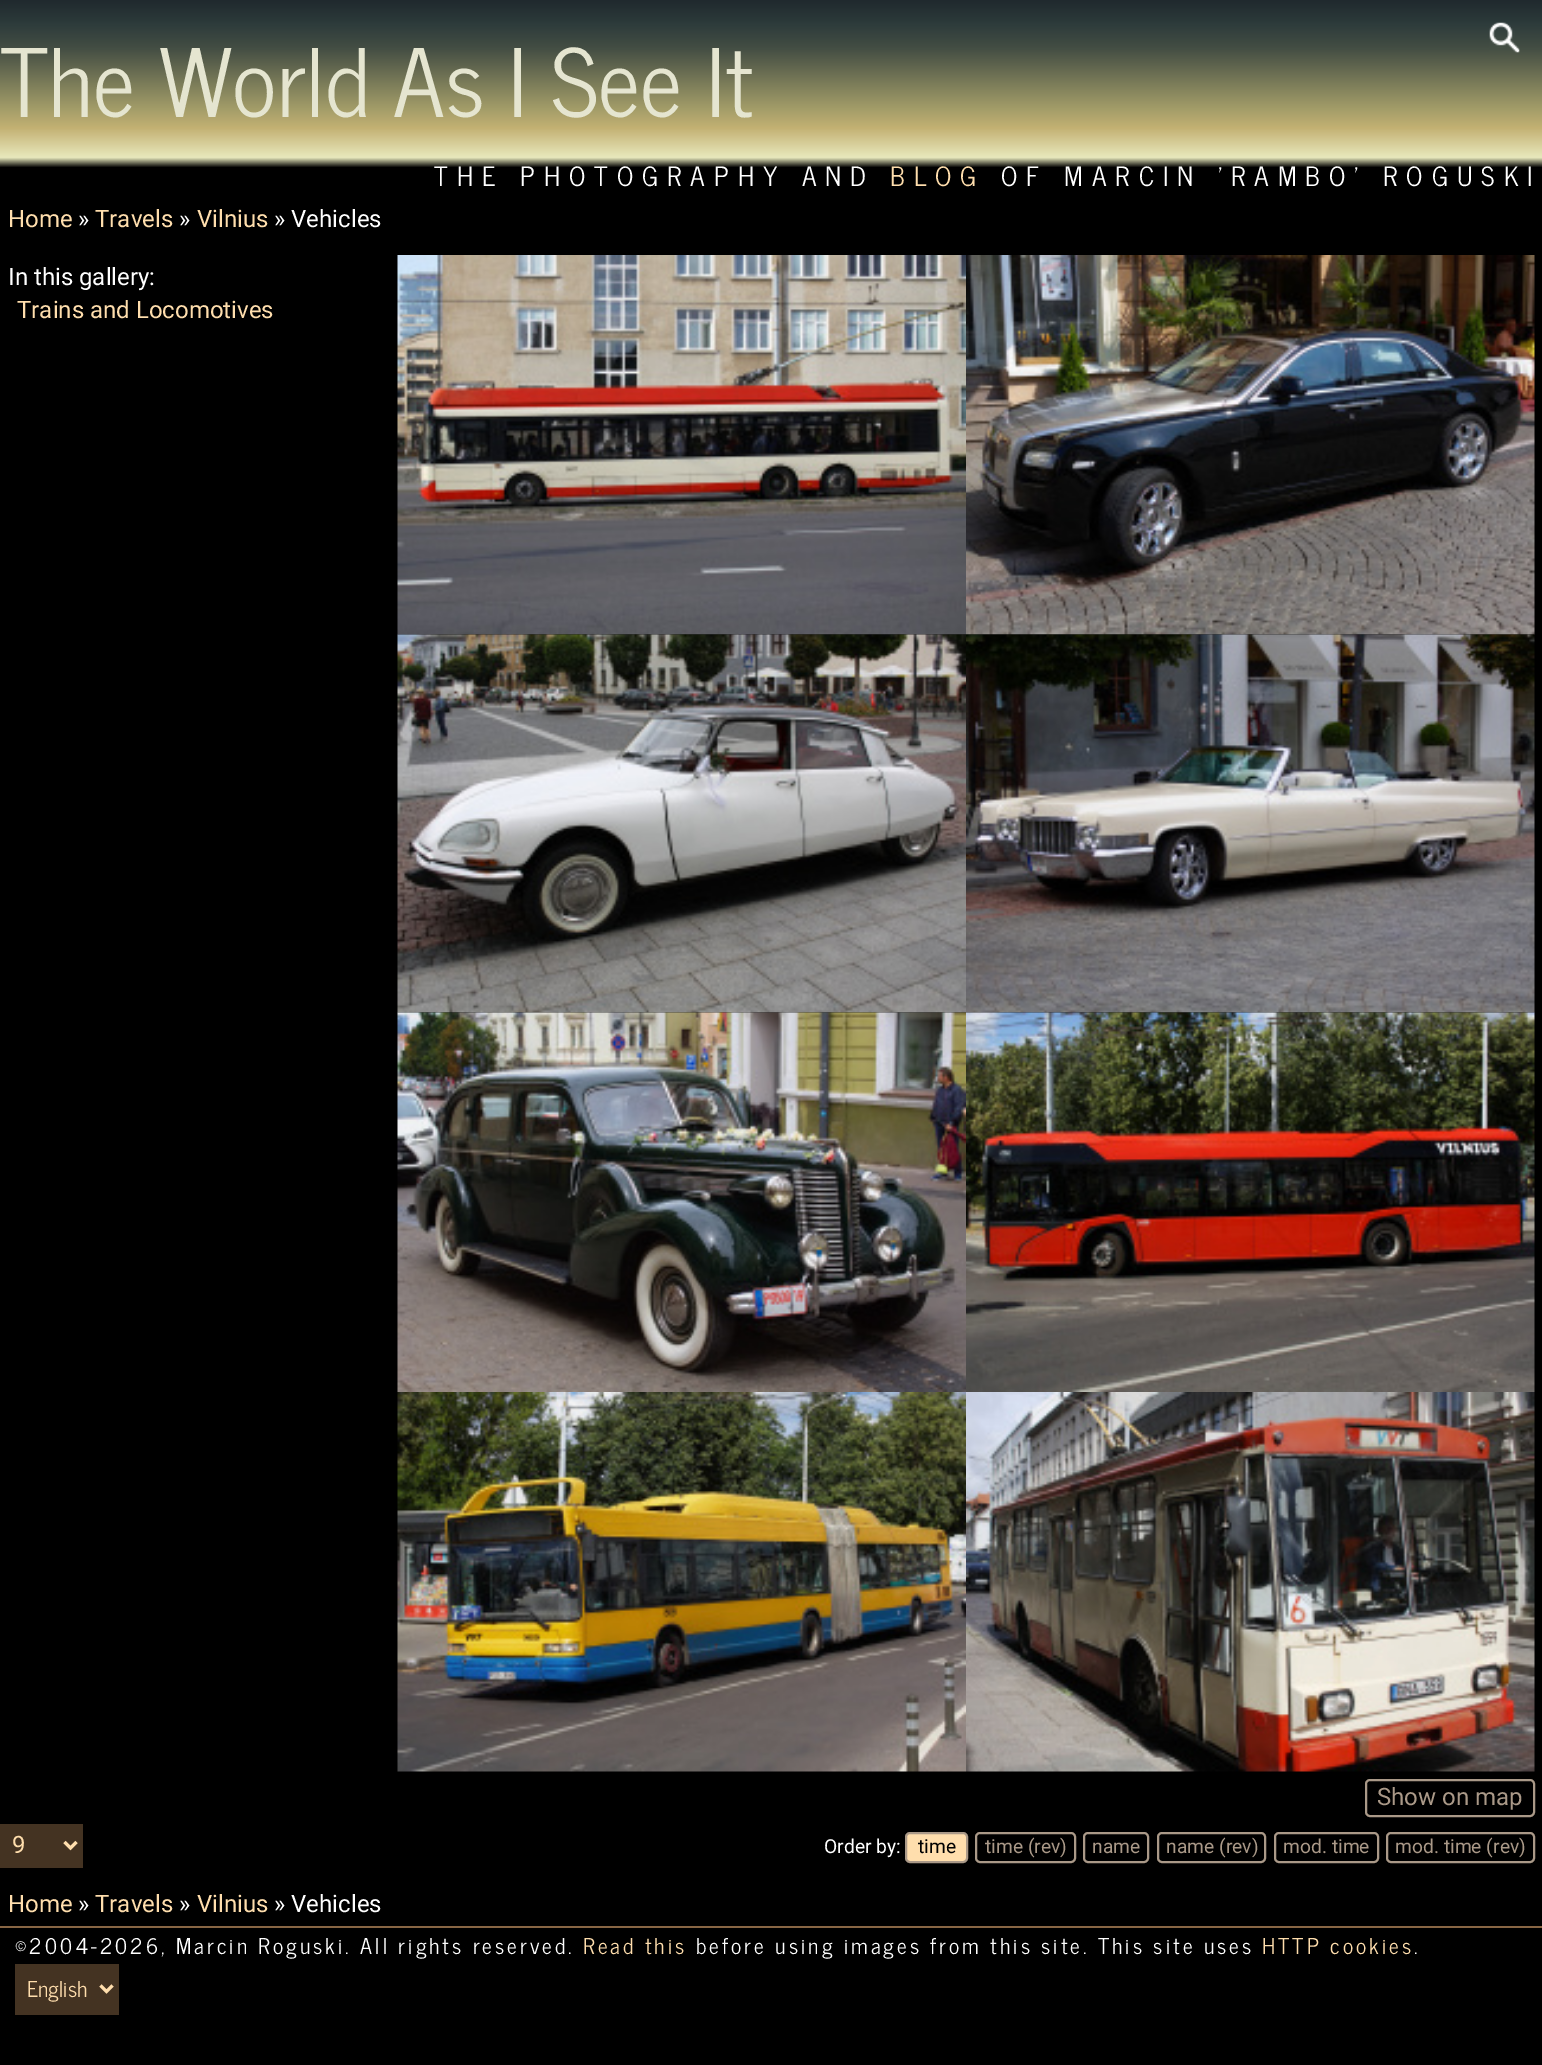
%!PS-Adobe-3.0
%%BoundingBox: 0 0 1542 2065
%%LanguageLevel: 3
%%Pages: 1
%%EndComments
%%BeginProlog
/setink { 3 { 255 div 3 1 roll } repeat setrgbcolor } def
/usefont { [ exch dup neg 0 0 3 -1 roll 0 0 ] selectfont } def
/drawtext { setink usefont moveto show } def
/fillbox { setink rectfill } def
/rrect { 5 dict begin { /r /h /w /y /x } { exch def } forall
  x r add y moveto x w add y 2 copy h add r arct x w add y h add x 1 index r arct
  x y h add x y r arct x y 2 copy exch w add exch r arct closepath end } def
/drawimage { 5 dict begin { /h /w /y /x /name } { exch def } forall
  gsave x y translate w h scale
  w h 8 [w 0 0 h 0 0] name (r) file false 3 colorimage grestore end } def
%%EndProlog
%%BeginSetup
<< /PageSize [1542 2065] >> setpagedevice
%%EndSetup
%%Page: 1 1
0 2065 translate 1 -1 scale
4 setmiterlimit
0 0 1542 2065 0 0 0 fillbox
gsave 0 0 moveto 1542 0 lineto 1542 167 lineto 0 167 lineto closepath clip newpath
<< /ShadingType 2 /ColorSpace /DeviceRGB /Coords [771 197 771 0] /Extend [true true] /Function << /FunctionType 3 /Domain [0 1] /Functions [<< /FunctionType 2 /Domain [0 1] /C0 [0 0 0] /C1 [0 0 0] /N 1 >> << /FunctionType 2 /Domain [0 1] /C0 [0 0 0] /C1 [0.91 0.914 0.741] /N 1 >> << /FunctionType 2 /Domain [0 1] /C0 [0.91 0.914 0.741] /C1 [0.765 0.694 0.451] /N 1 >> << /FunctionType 2 /Domain [0 1] /C0 [0.765 0.694 0.451] /C1 [0.635 0.612 0.408] /N 1 >> << /FunctionType 2 /Domain [0 1] /C0 [0.635 0.612 0.408] /C1 [0.271 0.31 0.267] /N 1 >> << /FunctionType 2 /Domain [0 1] /C0 [0.271 0.31 0.267] /C1 [0.176 0.231 0.231] /N 1 >> << /FunctionType 2 /Domain [0 1] /C0 [0.176 0.231 0.231] /C1 [0.125 0.161 0.18] /N 1 >>] /Bounds [0.15 0.2 0.35 0.45 0.75 0.88] /Encode [0 1 0 1 0 1 0 1 0 1 0 1 0 1] >> >> shfill grestore
(assets/img1.rgb) 1489 22 31 31 drawimage
(The World As I See It) 0 117 /NewsCycle-Regular 93.5 229 229 208 drawtext
/NewsCycle-Regular 26.4 usefont
255 255 255 setink
434 186 moveto 9 0 (THE PHOTOGRAPHY AND) ashow
255 222 173 setink
890 186 moveto 9 0 (BLOG) ashow
255 255 255 setink
1001 186 moveto 9 0 (OF MARCIN 'RAMBO' ROGUSKI) ashow
(Home) 8 227 /Roboto-Regular 24 255 222 173 drawtext
(») 78 227 /Roboto-Regular 24 255 255 255 drawtext
(Travels) 95 227 /Roboto-Regular 24 255 222 173 drawtext
(») 179 227 /Roboto-Regular 24 255 255 255 drawtext
(Vilnius) 197 227 /Roboto-Regular 24 255 222 173 drawtext
(» Vehicles) 274 227 /Roboto-Regular 24 255 255 255 drawtext
(In this gallery:) 8 285 /Roboto-Regular 24 255 255 255 drawtext
(Trains and Locomotives) 17 318 /Roboto-Regular 24 255 222 173 drawtext
(assets/img2.rgb) 397 255 569 380 drawimage
(assets/img3.rgb) 966 255 569 380 drawimage
(assets/img4.rgb) 397 634 569 379 drawimage
(assets/img5.rgb) 966 634 569 379 drawimage
(assets/img6.rgb) 397 1012 569 380 drawimage
(assets/img7.rgb) 966 1012 569 380 drawimage
(assets/img8.rgb) 397 1392 569 380 drawimage
(assets/img9.rgb) 966 1392 569 380 drawimage
170 153 136 setink
2 setlinewidth
1366 1780 168 36 4 rrect stroke
(Show on map) 1377 1805 /Roboto-Regular 24 170 153 136 drawtext
0 1824 83 44 68 51 34 fillbox
255 222 173 setink
3 setlinewidth
64.5 1842 moveto 70.5 1848 lineto 76.5 1842 lineto stroke
(9) 12 1853 /Roboto-Regular 24 255 222 173 drawtext
(Order by:) 824 1853 /Roboto-Regular 19.25 255 255 255 drawtext
255 222 173 setink
906 1833 61 29 4 rrect gsave fill grestore
170 153 136 setink
2 setlinewidth
stroke
(time) 918 1853 /Roboto-Regular 19.25 0 0 0 drawtext
170 153 136 setink
976 1833 99 29 4 rrect stroke
(time \(rev\)) 985 1853 /Roboto-Regular 19.25 170 153 136 drawtext
1084 1833 64 29 4 rrect stroke
(name) 1092 1853 /Roboto-Regular 19.25 170 153 136 drawtext
1158 1833 107 29 4 rrect stroke
(name \(rev\)) 1166 1853 /Roboto-Regular 19.25 170 153 136 drawtext
1275 1833 103 29 4 rrect stroke
(mod. time) 1283 1853 /Roboto-Regular 19.25 170 153 136 drawtext
1387 1833 147 29 4 rrect stroke
(mod. time \(rev\)) 1395 1853 /Roboto-Regular 19.25 170 153 136 drawtext
(Home) 8 1912 /Roboto-Regular 24 255 222 173 drawtext
(») 78 1912 /Roboto-Regular 24 255 255 255 drawtext
(Travels) 95 1912 /Roboto-Regular 24 255 222 173 drawtext
(») 179 1912 /Roboto-Regular 24 255 255 255 drawtext
(Vilnius) 197 1912 /Roboto-Regular 24 255 222 173 drawtext
(» Vehicles) 274 1912 /Roboto-Regular 24 255 255 255 drawtext
0 1926 1542 2 136 102 68 fillbox
/NewsCycle-Regular 21.6 usefont
255 255 255 setink
15 1954 moveto 3 0 (©2004-2026, Marcin Roguski. All rights reserved.) ashow
255 222 173 setink
583 1954 moveto 3 0 (Read this) ashow
255 255 255 setink
696 1954 moveto 3 0 (before using images from this site. This site uses) ashow
255 222 173 setink
1262 1954 moveto 3 0 (HTTP cookies) ashow
255 255 255 setink
1414 1954 moveto 3 0 (.) ashow
15 1964 104 51 68 51 34 fillbox
255 222 173 setink
3 setlinewidth
100.5 1985.5 moveto 106.5 1991.5 lineto 112.5 1985.5 lineto stroke
(English) 27 1997 /NewsCycle-Regular 21.6 255 222 173 drawtext
showpage
%%EOF
